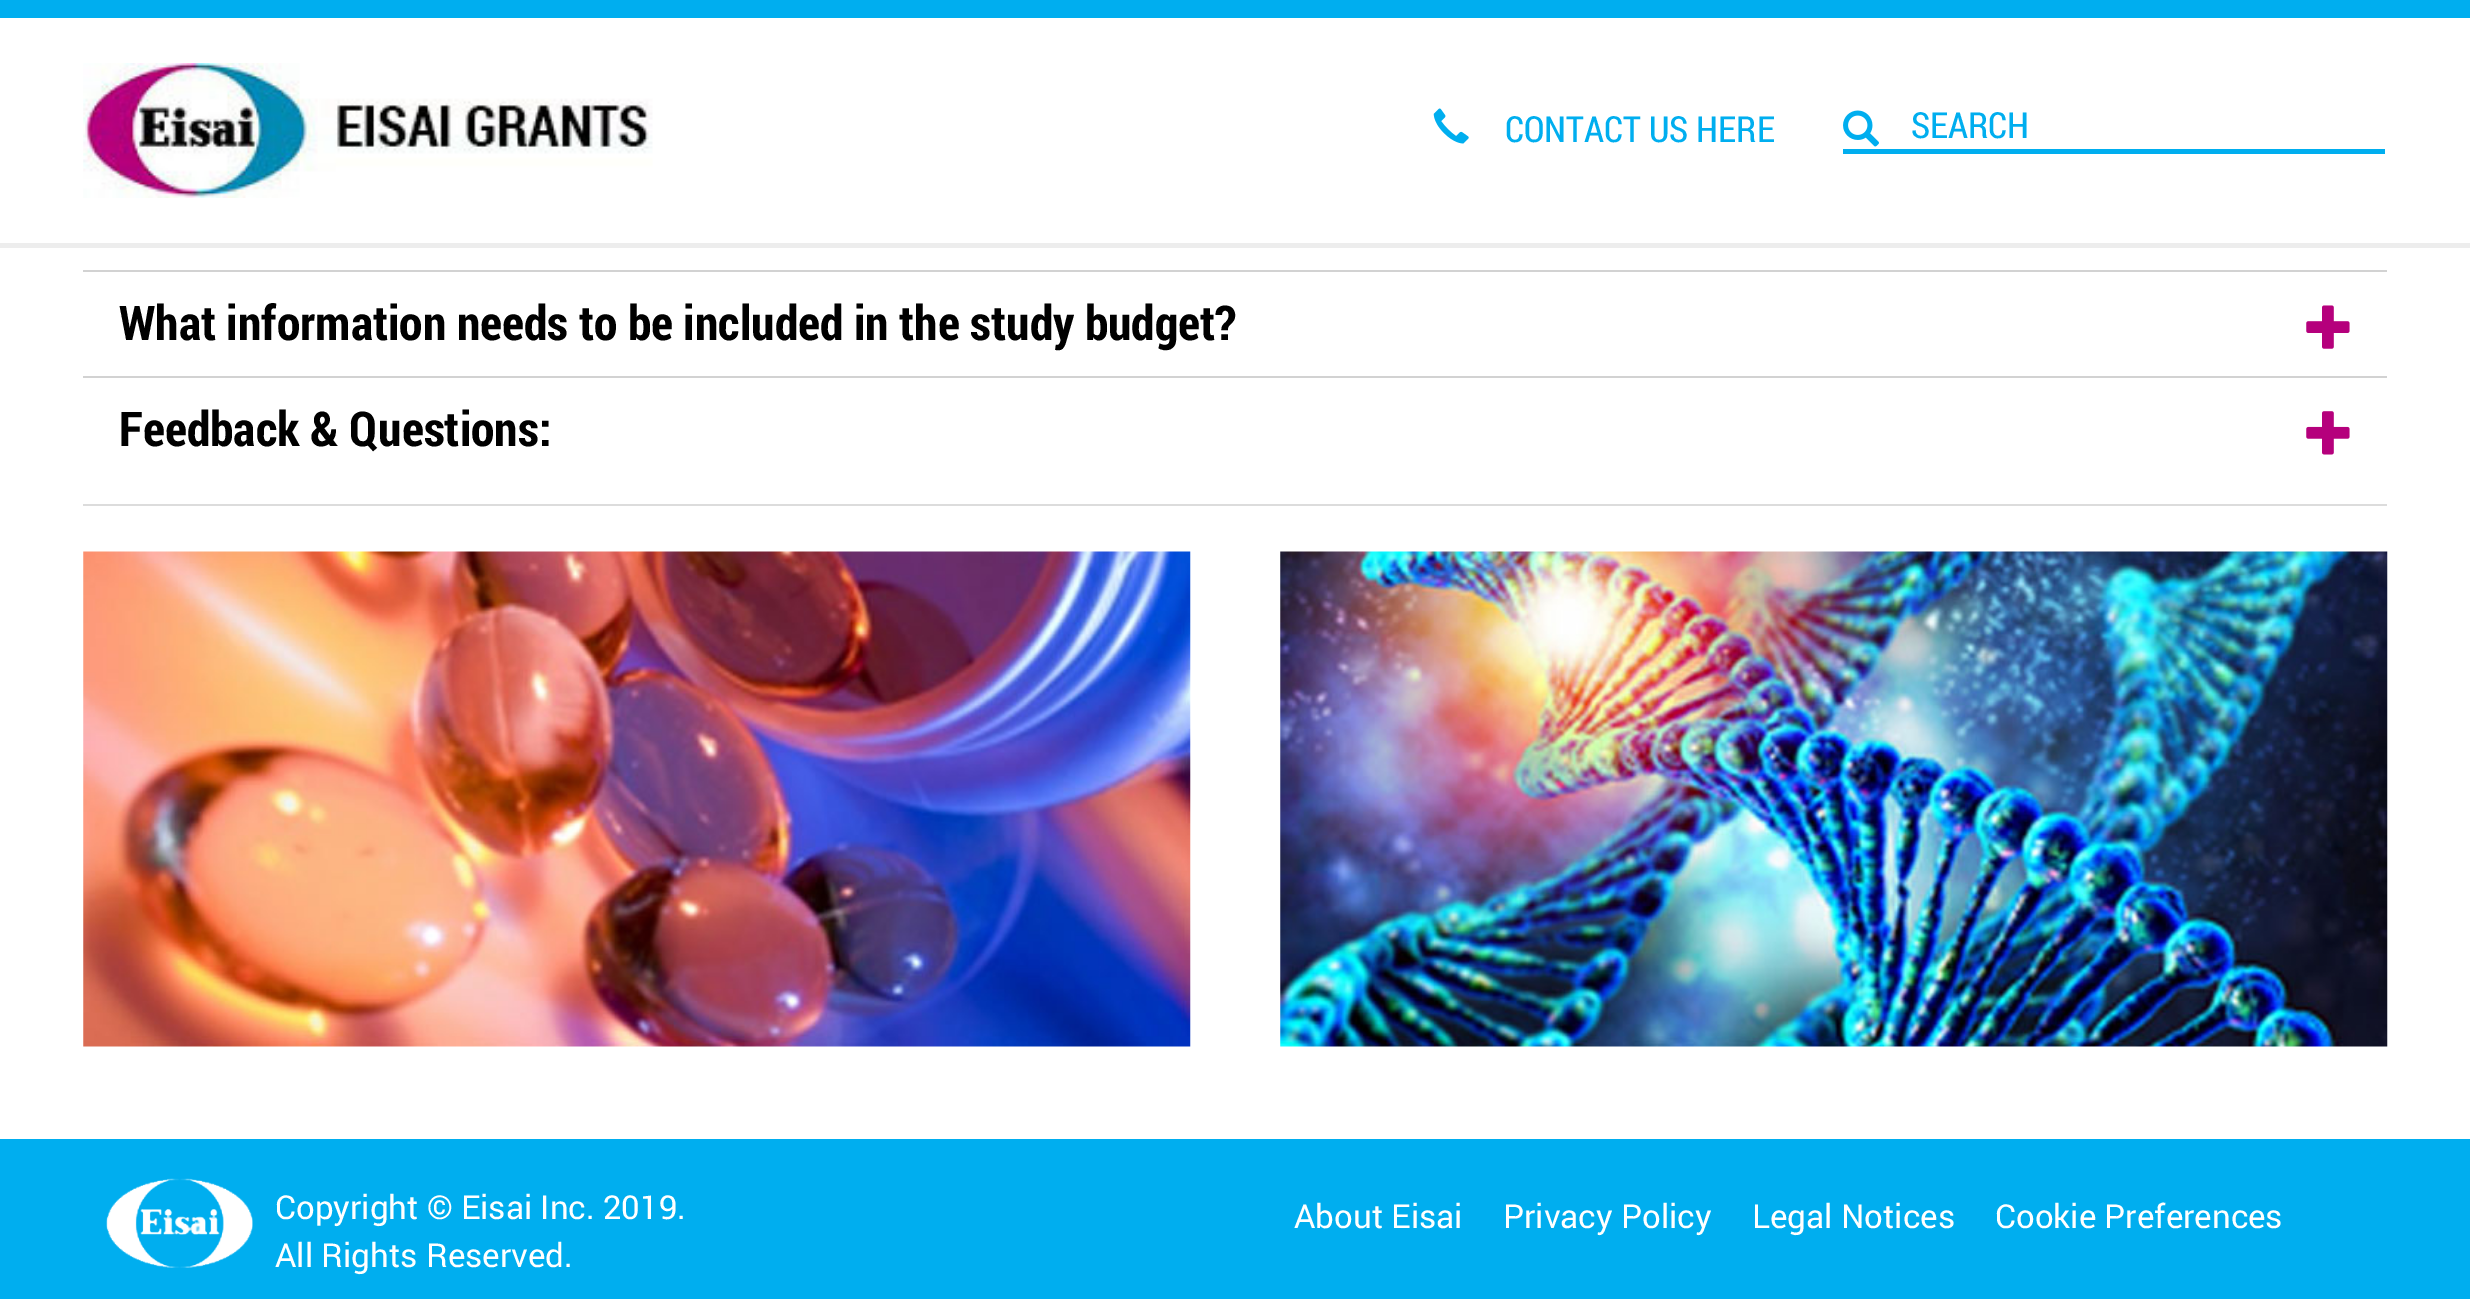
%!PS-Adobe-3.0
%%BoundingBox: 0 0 2470 1299
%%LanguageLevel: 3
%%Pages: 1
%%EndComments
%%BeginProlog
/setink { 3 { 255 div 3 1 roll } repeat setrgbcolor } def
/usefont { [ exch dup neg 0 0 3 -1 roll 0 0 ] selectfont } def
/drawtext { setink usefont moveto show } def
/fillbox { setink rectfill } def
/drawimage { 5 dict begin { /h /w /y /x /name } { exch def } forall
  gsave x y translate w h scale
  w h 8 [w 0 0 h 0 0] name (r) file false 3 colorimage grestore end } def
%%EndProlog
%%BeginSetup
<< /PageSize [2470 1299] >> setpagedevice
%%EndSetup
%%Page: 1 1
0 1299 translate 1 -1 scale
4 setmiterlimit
0 0 2470 1299 255 255 255 fillbox
0 0 2470 18 0 174 239 fillbox
0 243 2470 5 237 237 237 fillbox
(assets/img1.rgb) 83 63 570 135 drawimage
(assets/img2.rgb) 1433 108 36 36 drawimage
(CONTACT US HERE) 1505 142 /RobotoCondensed-Regular 36 0 174 239 drawtext
(assets/img3.rgb) 1843 110 36 37 drawimage
1843 149 542 5 0 174 239 fillbox
(SEARCH) 1911 138 /RobotoCondensed-Regular 36 0 174 239 drawtext
83 504 2304 2 220 220 220 fillbox
83 270 2304 2 210 210 210 fillbox
(What information needs to be included in the study budget?) 119 340 /RobotoCondensed-Bold 48 0 0 0 drawtext
(assets/img4.rgb) 2306 305 44 44 drawimage
83 376 2304 2 210 210 210 fillbox
(Feedback & Questions:) 119 446 /RobotoCondensed-Bold 48 0 0 0 drawtext
(assets/img5.rgb) 2306 411 44 44 drawimage
(assets/img6.rgb) 83 551 1108 496 drawimage
(assets/img7.rgb) 1280 551 1108 496 drawimage
0 1139 2470 160 0 174 239 fillbox
(assets/img8.rgb) 106 1178 147 90 drawimage
(Copyright © Eisai Inc. 2019.) 275 1219 /Roboto-Regular 33 255 255 255 drawtext
(All Rights Reserved.) 275 1267 /Roboto-Regular 33 255 255 255 drawtext
(About Eisai) 1294 1228 /Roboto-Regular 33 255 255 255 drawtext
(Privacy Policy) 1503 1228 /Roboto-Regular 33 255 255 255 drawtext
(Legal Notices) 1752 1228 /Roboto-Regular 33 255 255 255 drawtext
(Cookie Preferences) 1995 1228 /Roboto-Regular 33 255 255 255 drawtext
showpage
%%EOF
